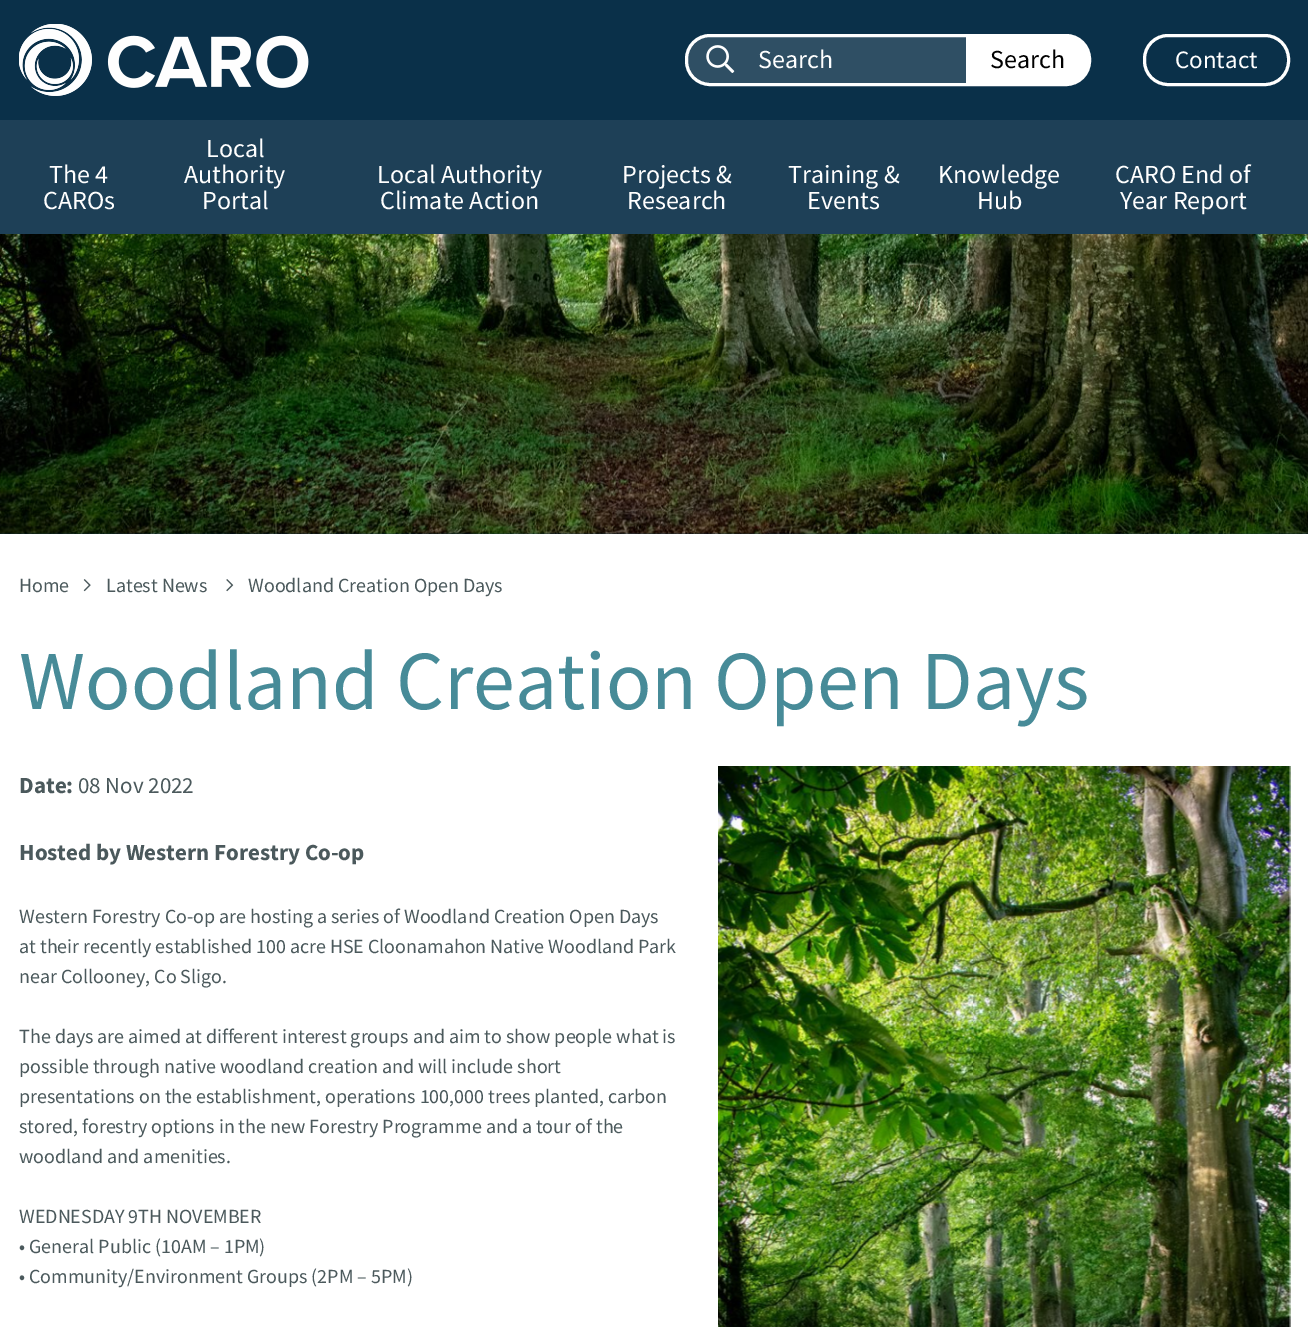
%!PS-Adobe-3.0
%%BoundingBox: 0 0 1308 1327
%%LanguageLevel: 3
%%Pages: 1
%%EndComments
%%BeginProlog
/setink { 3 { 255 div 3 1 roll } repeat setrgbcolor } def
/usefont { [ exch dup neg 0 0 3 -1 roll 0 0 ] selectfont } def
/drawtext { setink usefont moveto show } def
/fillbox { setink rectfill } def
/rrect { 5 dict begin { /r /h /w /y /x } { exch def } forall
  x r add y moveto x w add y 2 copy h add r arct x w add y h add x 1 index r arct
  x y h add x y r arct x y 2 copy exch w add exch r arct closepath end } def
/drawimage { 5 dict begin { /h /w /y /x /name } { exch def } forall
  gsave x y translate w h scale
  w h 8 [w 0 0 h 0 0] name (r) file false 3 colorimage grestore end } def
%%EndProlog
%%BeginSetup
<< /PageSize [1308 1327] >> setpagedevice
%%EndSetup
%%Page: 1 1
0 1327 translate 1 -1 scale
4 setmiterlimit
0 0 1308 1327 255 255 255 fillbox
0 0 1308 120 10 48 73 fillbox
(assets/img1.rgb) 19 24 290 72 drawimage
47 79 100 setink
686.5 35.5 403 49 23.5 rrect gsave fill grestore
255 255 255 setink
3 setlinewidth
stroke
(assets/img2.rgb) 706 45 29 28 drawimage
(Search) 758 68 /SourceSansPro-Regular 26 255 255 255 drawtext
966 36 moveto 1066 36 lineto 1078.5 36 1089 46.5 1089 59 curveto 1089 61 lineto 1089 73.5 1078.5 84 1066 84 curveto 966 84 lineto closepath fill
(Search) 990 68 /SourceSansPro-Regular 26 0 0 0 drawtext
255 255 255 setink
1144.5 35.5 144 49 23.5 rrect stroke
(Contact) 1175 68 /SourceSansPro-Regular 25 255 255 255 drawtext
0 120 1308 114 30 64 87 fillbox
(The 4) 49 183 /SourceSansPro-Regular 26 255 255 255 drawtext
(CAROs) 43 209 /SourceSansPro-Regular 26 255 255 255 drawtext
(Local) 206 157 /SourceSansPro-Regular 26 255 255 255 drawtext
(Authority) 184 183 /SourceSansPro-Regular 26 255 255 255 drawtext
(Portal) 202 209 /SourceSansPro-Regular 26 255 255 255 drawtext
(Local Authority) 377 183 /SourceSansPro-Regular 26 255 255 255 drawtext
(Climate Action) 380 209 /SourceSansPro-Regular 26 255 255 255 drawtext
(Projects &) 622 183 /SourceSansPro-Regular 26 255 255 255 drawtext
(Research) 627 209 /SourceSansPro-Regular 26 255 255 255 drawtext
(Training &) 788 183 /SourceSansPro-Regular 26 255 255 255 drawtext
(Events) 807 209 /SourceSansPro-Regular 26 255 255 255 drawtext
(Knowledge) 938 183 /SourceSansPro-Regular 26 255 255 255 drawtext
(Hub) 977 209 /SourceSansPro-Regular 26 255 255 255 drawtext
(CARO End of) 1115 183 /SourceSansPro-Regular 26 255 255 255 drawtext
(Year Report) 1120 209 /SourceSansPro-Regular 26 255 255 255 drawtext
(assets/img3.rgb) 0 234 1308 300 drawimage
(Home) 19 592 /SourceSansPro-Regular 20 75 89 92 drawtext
(assets/img4.rgb) 83 579 8 13 drawimage
(Latest News) 106 592 /SourceSansPro-Regular 20 75 89 92 drawtext
(assets/img5.rgb) 226 579 8 13 drawimage
(Woodland Creation Open Days) 248 592 /SourceSansPro-Regular 20 75 89 92 drawtext
(Woodland Creation Open Days) 19 709 /SourceSansPro-Regular 84 71 139 152 drawtext
(Date:) 19 793 /SourceSansPro-Bold 23 75 89 92 drawtext
(08 Nov 2022) 78 793 /SourceSansPro-Regular 23 75 89 92 drawtext
(assets/img6.rgb) 718 766 573 561 drawimage
(Hosted by Western Forestry Co-op) 19 860 /SourceSansPro-Bold 23 75 89 92 drawtext
(Western Forestry Co-op are hosting a series of Woodland Creation Open Days) 19 923 /SourceSansPro-Regular 20 75 89 92 drawtext
(at their recently established 100 acre HSE Cloonamahon Native Woodland Park) 19 953 /SourceSansPro-Regular 20 75 89 92 drawtext
(near Collooney, Co Sligo.) 19 983 /SourceSansPro-Regular 20 75 89 92 drawtext
(The days are aimed at different interest groups and aim to show people what is) 19 1043 /SourceSansPro-Regular 20 75 89 92 drawtext
(possible through native woodland creation and will include short) 19 1073 /SourceSansPro-Regular 20 75 89 92 drawtext
(presentations on the establishment, operations 100,000 trees planted, carbon) 19 1103 /SourceSansPro-Regular 20 75 89 92 drawtext
(stored, forestry options in the new Forestry Programme and a tour of the) 19 1133 /SourceSansPro-Regular 20 75 89 92 drawtext
(woodland and amenities.) 19 1163 /SourceSansPro-Regular 20 75 89 92 drawtext
(WEDNESDAY 9TH NOVEMBER) 19 1223 /SourceSansPro-Regular 20 75 89 92 drawtext
(• General Public \(10AM – 1PM\)) 19 1253 /SourceSansPro-Regular 20 75 89 92 drawtext
(• Community/Environment Groups \(2PM – 5PM\)) 19 1283 /SourceSansPro-Regular 20 75 89 92 drawtext
showpage
%%EOF
